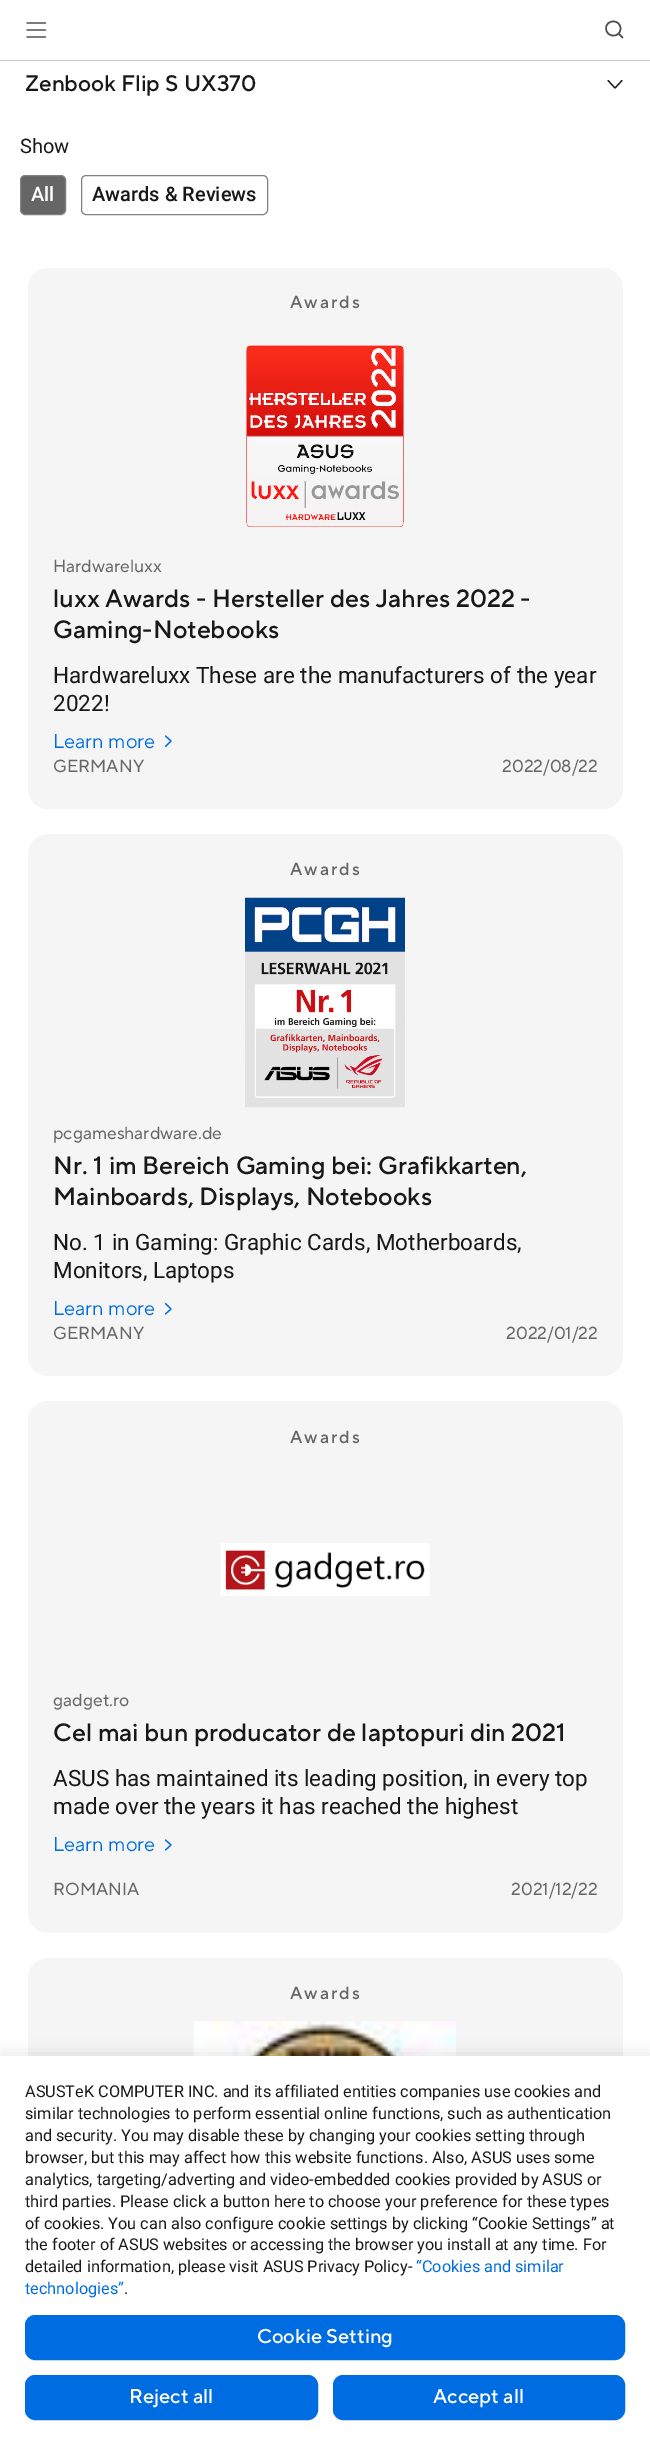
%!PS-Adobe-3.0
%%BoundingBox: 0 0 650 2444
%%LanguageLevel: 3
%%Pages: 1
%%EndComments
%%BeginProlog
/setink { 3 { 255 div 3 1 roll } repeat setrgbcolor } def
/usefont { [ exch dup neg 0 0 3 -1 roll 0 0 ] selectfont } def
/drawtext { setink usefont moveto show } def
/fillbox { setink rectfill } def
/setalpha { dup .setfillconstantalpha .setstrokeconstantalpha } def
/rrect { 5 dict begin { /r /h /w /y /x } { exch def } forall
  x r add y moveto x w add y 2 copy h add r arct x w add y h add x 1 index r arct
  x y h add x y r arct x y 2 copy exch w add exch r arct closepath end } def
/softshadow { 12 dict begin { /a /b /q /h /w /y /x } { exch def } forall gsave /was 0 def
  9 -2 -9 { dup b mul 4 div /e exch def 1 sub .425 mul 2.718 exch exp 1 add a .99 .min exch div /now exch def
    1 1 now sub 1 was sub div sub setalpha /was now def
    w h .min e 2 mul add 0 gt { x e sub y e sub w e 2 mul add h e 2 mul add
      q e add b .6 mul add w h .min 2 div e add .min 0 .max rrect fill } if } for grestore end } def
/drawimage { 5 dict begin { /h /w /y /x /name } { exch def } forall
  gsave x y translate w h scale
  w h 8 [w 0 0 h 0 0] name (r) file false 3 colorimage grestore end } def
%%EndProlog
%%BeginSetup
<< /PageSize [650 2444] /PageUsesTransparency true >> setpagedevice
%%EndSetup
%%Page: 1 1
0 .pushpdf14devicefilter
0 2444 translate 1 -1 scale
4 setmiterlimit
0 0 650 2444 255 255 255 fillbox
0 60 650 1 204 204 204 fillbox
77 77 77 setink
1.2 setlinewidth
1 setlinecap
27 30 moveto 45.5 30 lineto 27 23 moveto 45.5 23 lineto 27 37 moveto 45.5 37 lineto stroke
1.5 setlinewidth
618.5 33.5 moveto 622.5 37.5 lineto 620.5 28.5 moveto 620.5 38 606.5 38 606 28.5 curveto 606 19 620.5 19 620.5 28.5 curveto closepath stroke
(Zenbook Flip S UX370) 25 91 /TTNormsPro-Medium 22.5 24 24 24 drawtext
1.2 setlinewidth
1 setlinejoin
608 80.5 moveto 615 88 lineto 622 80.5 lineto stroke
(Show) 20 153 /Roboto-Regular 20 24 24 24 drawtext
102 102 102 setink
20.5 175.5 45 39 4.5 rrect gsave fill grestore
129 129 129 setink
1 setlinewidth
0 setlinecap
0 setlinejoin
stroke
(All) 31 201 /Roboto-Medium 20 255 255 255 drawtext
129 129 129 setink
81.5 175.5 186 39 4.5 rrect stroke
(Awards & Reviews) 92 201 /Roboto-Medium 20 24 24 24 drawtext
245 245 245 setink
28 268 595 541 20 rrect fill
/TTNormsPro-Medium 17.5 usefont
102 102 102 setink
290 308 moveto 2 0 (Awards) ashow
(assets/img1.rgb) 246 345 158 182 drawimage
(Hardwareluxx) 53 572 /TTNormsPro-Regular 17.5 102 102 102 drawtext
(luxx Awards - Hersteller des Jahres 2022 -) 53 607 /TTNormsPro-Medium 25 24 24 24 drawtext
(Gaming-Notebooks) 53 638 /TTNormsPro-Medium 25 24 24 24 drawtext
(Hardwareluxx These are the manufacturers of the year) 53 683 /Roboto-Regular 22.5 24 24 24 drawtext
(2022!) 53 711 /Roboto-Regular 22.5 24 24 24 drawtext
(Learn more) 53 748 /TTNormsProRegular-Regular 20 0 108 225 drawtext
1.2 setlinewidth
1 setlinecap
1 setlinejoin
165.5 736 moveto 171 741 lineto 165.5 746.5 lineto stroke
(GERMANY) 53 772 /TTNormsPro-Regular 17.5 102 102 102 drawtext
(2022/08/22) 502 772 /TTNormsPro-Regular 17.5 102 102 102 drawtext
245 245 245 setink
28 834 595 542 20 rrect fill
/TTNormsPro-Medium 17.5 usefont
102 102 102 setink
290 875 moveto 2 0 (Awards) ashow
(assets/img2.rgb) 245 897 160 211 drawimage
(pcgameshardware.de) 53 1139 /TTNormsPro-Regular 17.5 102 102 102 drawtext
(Nr. 1 im Bereich Gaming bei: Grafikkarten,) 53 1174 /TTNormsPro-Medium 25 24 24 24 drawtext
(Mainboards, Displays, Notebooks) 53 1205 /TTNormsPro-Medium 25 24 24 24 drawtext
(No. 1 in Gaming: Graphic Cards, Motherboards,) 53 1250 /Roboto-Regular 22.5 24 24 24 drawtext
(Monitors, Laptops) 53 1278 /Roboto-Regular 22.5 24 24 24 drawtext
(Learn more) 53 1315 /TTNormsProRegular-Regular 20 0 108 225 drawtext
165.5 1303.5 moveto 171 1309 lineto 165.5 1314 lineto stroke
(GERMANY) 53 1339 /TTNormsPro-Regular 17.5 102 102 102 drawtext
(2022/01/22) 506 1339 /TTNormsPro-Regular 17.5 102 102 102 drawtext
245 245 245 setink
28 1401 595 532 20 rrect fill
/TTNormsPro-Medium 17.5 usefont
102 102 102 setink
290 1443 moveto 2 0 (Awards) ashow
(assets/img3.rgb) 220 1543 210 53 drawimage
(gadget.ro) 53 1706 /TTNormsPro-Regular 17.5 102 102 102 drawtext
(Cel mai bun producator de laptopuri din 2021) 53 1741 /TTNormsPro-Medium 25 24 24 24 drawtext
(ASUS has maintained its leading position, in every top) 53 1786 /Roboto-Regular 22.5 24 24 24 drawtext
(made over the years it has reached the highest) 53 1814 /Roboto-Regular 22.5 24 24 24 drawtext
(Learn more) 53 1851 /TTNormsProRegular-Regular 20 0 108 225 drawtext
165.5 1840 moveto 171 1845 lineto 165.5 1850 lineto stroke
(ROMANIA) 53 1895 /TTNormsPro-Regular 17.5 102 102 102 drawtext
(2021/12/22) 511 1895 /TTNormsPro-Regular 17.5 102 102 102 drawtext
245 245 245 setink
48 1958 moveto 603 1958 lineto 614 1958 623 1967 623 1978 curveto 623 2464 lineto 28 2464 lineto 28 1978 lineto 28 1967 37 1958 48 1958 curveto closepath fill
/TTNormsPro-Medium 17.5 usefont
102 102 102 setink
290 1999 moveto 2 0 (Awards) ashow
(assets/img4.rgb) 193 2021 263 35 drawimage
0 0 0 setink
1 2054 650 389 0 7.5 0.1 softshadow
0 2056 650 388 255 255 255 fillbox
(ASUSTeK COMPUTER INC. and its affiliated entities companies use cookies and) 25 2097 /Roboto-Regular 16.25 24 24 24 drawtext
(similar technologies to perform essential online functions, such as authentication) 25 2119 /Roboto-Regular 16.25 24 24 24 drawtext
(and security. You may disable these by changing your cookies setting through) 25 2141 /Roboto-Regular 16.25 24 24 24 drawtext
(browser, but this may affect how this website functions. Also, ASUS uses some) 25 2163 /Roboto-Regular 16.25 24 24 24 drawtext
(analytics, targeting/adverting and video-embedded cookies provided by ASUS or) 25 2185 /Roboto-Regular 16.25 24 24 24 drawtext
(third parties. Please click a button here to choose your preference for these types) 25 2207 /Roboto-Regular 16.25 24 24 24 drawtext
(of cookies. You can also configure cookie settings by clicking “Cookie Settings” at) 25 2229 /Roboto-Regular 16.25 24 24 24 drawtext
(the footer of ASUS websites or accessing the browser you install at any time. For) 25 2250 /Roboto-Regular 16.25 24 24 24 drawtext
(detailed information, please visit ASUS Privacy Policy-) 25 2272 /Roboto-Regular 16.25 24 24 24 drawtext
(“Cookies and similar) 416 2272 /Roboto-Regular 16.25 0 108 225 drawtext
(technologies”) 25 2294 /Roboto-Regular 16.25 0 108 225 drawtext
(.) 124 2294 /Roboto-Regular 16.25 24 24 24 drawtext
0 108 225 setink
26.5 2316.5 597 42 8.5 rrect gsave fill grestore
3 setlinewidth
0 setlinecap
0 setlinejoin
stroke
(Cookie Setting) 257 2343 /TTNormsPro-Medium 20 255 255 255 drawtext
0 108 225 setink
26.5 2376.5 290 42 8.5 rrect gsave fill grestore
stroke
(Reject all) 129 2403 /TTNormsPro-Medium 20 255 255 255 drawtext
0 108 225 setink
334.5 2376.5 289 42 8.5 rrect gsave fill grestore
stroke
(Accept all) 433 2403 /TTNormsPro-Medium 20 255 255 255 drawtext
.poppdf14devicefilter showpage
%%EOF
